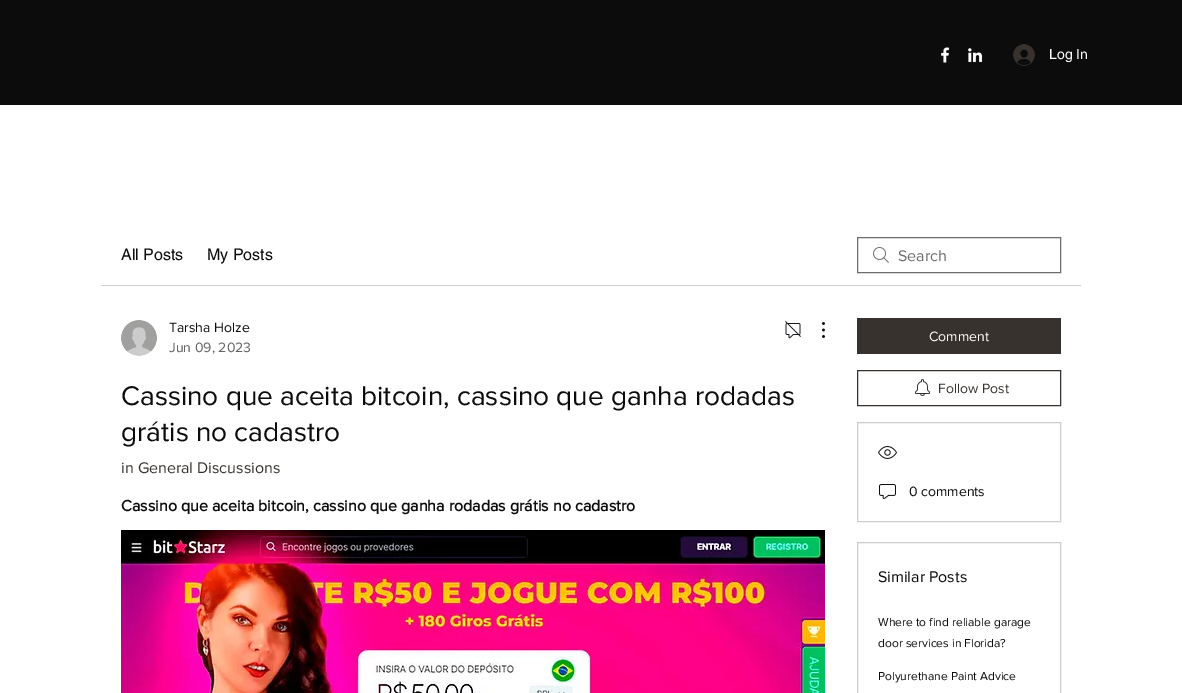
%!PS-Adobe-3.0
%%BoundingBox: 0 0 1182 693
%%LanguageLevel: 3
%%Pages: 1
%%EndComments
%%BeginProlog
/setink { 3 { 255 div 3 1 roll } repeat setrgbcolor } def
/usefont { [ exch dup neg 0 0 3 -1 roll 0 0 ] selectfont } def
/drawtext { setink usefont moveto show } def
/fillbox { setink rectfill } def
/drawimage { 5 dict begin { /h /w /y /x /name } { exch def } forall
  gsave x y translate w h scale
  w h 8 [w 0 0 h 0 0] name (r) file false 3 colorimage grestore end } def
%%EndProlog
%%BeginSetup
<< /PageSize [1182 693] >> setpagedevice
%%EndSetup
%%Page: 1 1
0 693 translate 1 -1 scale
4 setmiterlimit
0 0 1182 693 255 255 255 fillbox
0 0 1182 105 12 12 13 fillbox
(assets/img1.rgb) 941 47 9 16 drawimage
(assets/img2.rgb) 968 48 15 15 drawimage
(assets/img3.rgb) 1013 44 22 22 drawimage
(Log In) 1049 59 /helvetica-Regular 14 255 255 255 drawtext
101 285 980 1 206 206 207 fillbox
(All Posts) 121 260 /helvetica-Regular 16 12 12 13 drawtext
(My Posts) 207 260 /helvetica-Regular 16 12 12 13 drawtext
(assets/img4.rgb) 873 247 16 16 drawimage
109 109 110 setink
857.5 237.5 203 35 rectstroke
(Search) 898 261 /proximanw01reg-Regular 16 109 109 110 drawtext
(assets/img5.rgb) 121 320 36 36 drawimage
(Tarsha Holze) 169 332 /proximanw01reg-Regular 14 12 12 13 drawtext
(Jun 09, 2023) 169 352 /proximanw01reg-Regular 14 99 99 100 drawtext
(assets/img6.rgb) 785 321 16 18 drawimage
(assets/img7.rgb) 822 322 3 16 drawimage
(Cassino que aceita bitcoin, cassino que ganha rodadas) 121 405 /proximanw01reg-Regular 28 12 12 13 drawtext
(grátis no cadastro) 121 441 /proximanw01reg-Regular 28 12 12 13 drawtext
(in General Discussions) 121 473 /proximanw01reg-Regular 16 55 50 46 drawtext
(Cassino que aceita bitcoin, cassino que ganha rodadas grátis no cadastro) 121 511 /proximanw01reg-Bold 16 12 12 13 drawtext
(assets/img8.rgb) 121 530 704 163 drawimage
857 318 204 36 55 50 46 fillbox
(Comment) 929 341 /proximanw01reg-Regular 14 255 255 255 drawtext
55 50 46 setink
857.5 370.5 203 35 rectstroke
(assets/img9.rgb) 915 379 15 17 drawimage
(Follow Post) 938 393 /proximanw01reg-Regular 14 55 50 46 drawtext
206 206 207 setink
857.5 422.5 203 99 rectstroke
(assets/img10.rgb) 878 446 19 13 drawimage
(assets/img11.rgb) 879 484 17 15 drawimage
(0 comments) 909 496 /proximanw01reg-Regular 14 12 12 13 drawtext
206 206 207 setink
857.5 542.5 203 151 rectstroke
(Similar Posts) 878 582 /proximanw01reg-Regular 16 12 12 13 drawtext
(Where to find reliable garage) 878 626 /proximanw01reg-Regular 12 12 12 13 drawtext
(door services in Florida?) 878 647 /proximanw01reg-Regular 12 12 12 13 drawtext
(Polyurethane Paint Advice) 878 680 /proximanw01reg-Regular 12 12 12 13 drawtext
showpage
%%EOF
